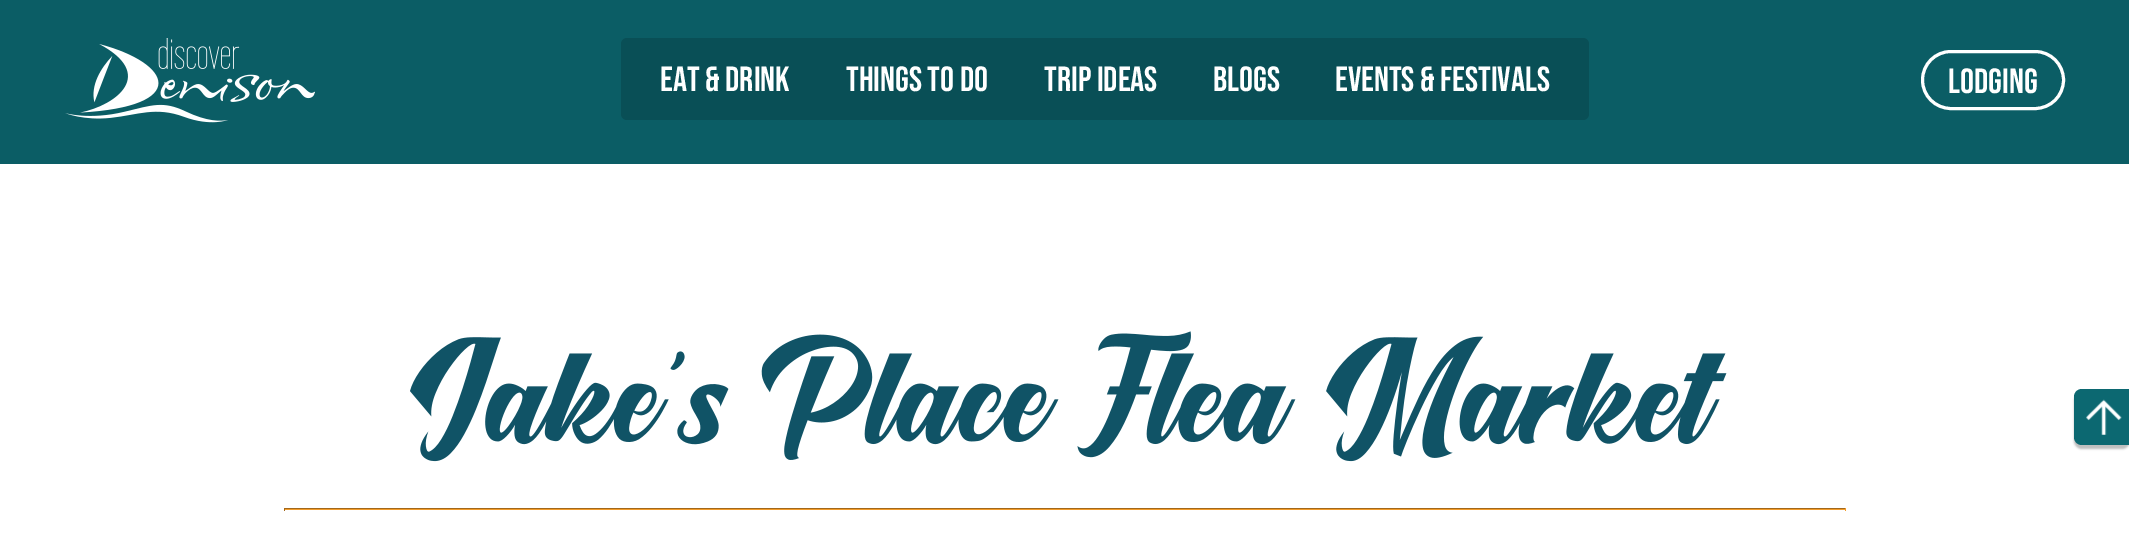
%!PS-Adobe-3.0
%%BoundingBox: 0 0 2129 555
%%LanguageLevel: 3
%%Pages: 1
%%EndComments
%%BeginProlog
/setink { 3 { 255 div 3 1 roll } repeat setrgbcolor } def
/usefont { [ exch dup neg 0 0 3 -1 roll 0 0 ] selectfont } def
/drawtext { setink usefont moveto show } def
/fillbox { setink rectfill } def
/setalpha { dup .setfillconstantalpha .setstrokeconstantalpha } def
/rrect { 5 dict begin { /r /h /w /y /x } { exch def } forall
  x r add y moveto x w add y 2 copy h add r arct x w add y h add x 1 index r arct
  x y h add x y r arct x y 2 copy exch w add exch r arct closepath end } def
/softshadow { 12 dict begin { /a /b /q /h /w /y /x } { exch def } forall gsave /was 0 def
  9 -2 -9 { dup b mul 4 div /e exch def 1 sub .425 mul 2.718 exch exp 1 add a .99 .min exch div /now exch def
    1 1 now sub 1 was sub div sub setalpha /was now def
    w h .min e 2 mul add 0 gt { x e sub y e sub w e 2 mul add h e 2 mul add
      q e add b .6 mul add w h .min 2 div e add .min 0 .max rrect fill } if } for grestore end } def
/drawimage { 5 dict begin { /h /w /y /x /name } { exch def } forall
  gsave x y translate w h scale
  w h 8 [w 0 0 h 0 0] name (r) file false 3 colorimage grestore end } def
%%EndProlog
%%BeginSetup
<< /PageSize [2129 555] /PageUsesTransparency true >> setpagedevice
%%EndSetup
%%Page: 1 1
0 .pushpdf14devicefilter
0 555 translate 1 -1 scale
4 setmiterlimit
0 0 2129 555 255 255 255 fillbox
0 0 2129 164 11 93 101 fillbox
(assets/img1.rgb) 65 38 250 85 drawimage
9 79 86 setink
621 38 968 82 6 rrect fill
(Eat & Drink) 660 91 /BebasNeue-Regular 35 255 255 255 drawtext
(Things To Do) 846 91 /BebasNeue-Regular 35 255 255 255 drawtext
(Trip Ideas) 1044 91 /BebasNeue-Regular 35 255 255 255 drawtext
(Blogs) 1213 91 /BebasNeue-Regular 35 255 255 255 drawtext
(Events & Festivals) 1335 91 /BebasNeue-Regular 35 255 255 255 drawtext
3 setlinewidth
1922.5 51.5 141 57 28.5 rrect stroke
(Lodging) 1948 93 /BebasNeue-Regular 35 255 255 255 drawtext
(assets/img2.rgb) 410 331 1317 131 drawimage
284 508 1562 1 162 104 28 fillbox
1845 508 1 3 243 156 42 fillbox
284 509 1562 1 243 156 42 fillbox
284 508 1 3 162 104 28 fillbox
0 0 0 setink
2074 393 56 56 8 1 0.25 softshadow
12 104 113 setink
2082 389 moveto 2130 389 lineto 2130 445 lineto 2082 445 lineto 2077.5 445 2074 441.5 2074 437 curveto 2074 397 lineto 2074 392.5 2077.5 389 2082 389 curveto closepath fill
(assets/img3.rgb) 2086 399 36 36 drawimage
.poppdf14devicefilter showpage
%%EOF
